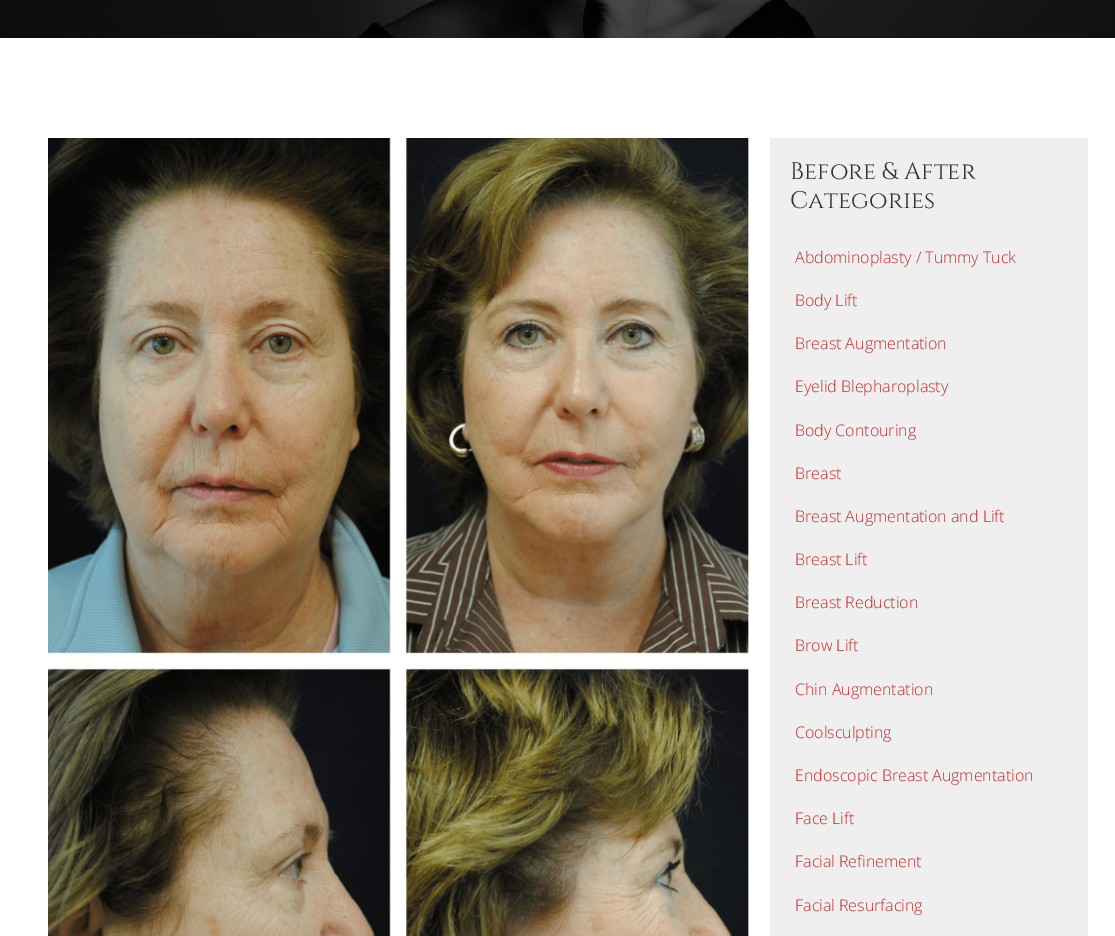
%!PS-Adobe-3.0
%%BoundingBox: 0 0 1115 936
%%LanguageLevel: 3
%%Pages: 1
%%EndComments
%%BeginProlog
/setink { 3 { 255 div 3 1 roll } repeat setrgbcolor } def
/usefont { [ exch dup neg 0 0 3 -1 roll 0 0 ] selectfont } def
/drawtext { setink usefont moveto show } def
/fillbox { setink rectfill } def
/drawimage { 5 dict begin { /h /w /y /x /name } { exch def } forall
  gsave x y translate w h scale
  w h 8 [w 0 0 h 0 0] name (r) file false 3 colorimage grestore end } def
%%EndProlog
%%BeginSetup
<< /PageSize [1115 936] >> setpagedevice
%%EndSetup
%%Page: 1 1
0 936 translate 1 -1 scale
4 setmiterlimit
0 0 1115 936 255 255 255 fillbox
(assets/img1.rgb) 0 0 1115 38 drawimage
(assets/img2.rgb) 48 138 701 798 drawimage
770 138 318 798 239 239 239 fillbox
(Before & After) 790 179 /Cinzel-Regular 24 51 51 51 drawtext
(Categories) 790 208 /Cinzel-Regular 24 51 51 51 drawtext
(Abdominoplasty / Tummy Tuck) 795 263 /OpenSans-Light 16 198 44 46 drawtext
(Body Lift) 795 306 /OpenSans-Light 16 198 44 46 drawtext
(Breast Augmentation) 795 349 /OpenSans-Light 16 198 44 46 drawtext
(Eyelid Blepharoplasty) 795 392 /OpenSans-Light 16 198 44 46 drawtext
(Body Contouring) 795 436 /OpenSans-Light 16 198 44 46 drawtext
(Breast) 795 479 /OpenSans-Light 16 198 44 46 drawtext
(Breast Augmentation and Lift) 795 522 /OpenSans-Light 16 198 44 46 drawtext
(Breast Lift) 795 565 /OpenSans-Light 16 198 44 46 drawtext
(Breast Reduction) 795 608 /OpenSans-Light 16 198 44 46 drawtext
(Brow Lift) 795 651 /OpenSans-Light 16 198 44 46 drawtext
(Chin Augmentation) 795 695 /OpenSans-Light 16 198 44 46 drawtext
(Coolsculpting) 795 738 /OpenSans-Light 16 198 44 46 drawtext
(Endoscopic Breast Augmentation) 795 781 /OpenSans-Light 16 198 44 46 drawtext
(Face Lift) 795 824 /OpenSans-Light 16 198 44 46 drawtext
(Facial Refinement) 795 867 /OpenSans-Light 16 198 44 46 drawtext
(Facial Resurfacing) 795 911 /OpenSans-Light 16 198 44 46 drawtext
showpage
%%EOF
